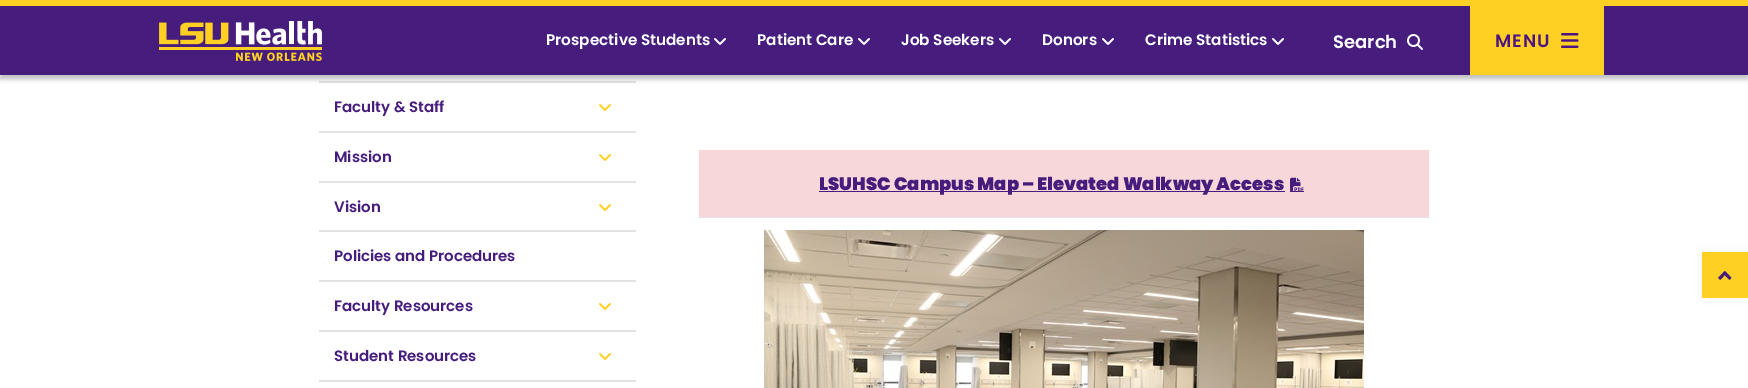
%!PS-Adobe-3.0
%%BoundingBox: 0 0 1748 388
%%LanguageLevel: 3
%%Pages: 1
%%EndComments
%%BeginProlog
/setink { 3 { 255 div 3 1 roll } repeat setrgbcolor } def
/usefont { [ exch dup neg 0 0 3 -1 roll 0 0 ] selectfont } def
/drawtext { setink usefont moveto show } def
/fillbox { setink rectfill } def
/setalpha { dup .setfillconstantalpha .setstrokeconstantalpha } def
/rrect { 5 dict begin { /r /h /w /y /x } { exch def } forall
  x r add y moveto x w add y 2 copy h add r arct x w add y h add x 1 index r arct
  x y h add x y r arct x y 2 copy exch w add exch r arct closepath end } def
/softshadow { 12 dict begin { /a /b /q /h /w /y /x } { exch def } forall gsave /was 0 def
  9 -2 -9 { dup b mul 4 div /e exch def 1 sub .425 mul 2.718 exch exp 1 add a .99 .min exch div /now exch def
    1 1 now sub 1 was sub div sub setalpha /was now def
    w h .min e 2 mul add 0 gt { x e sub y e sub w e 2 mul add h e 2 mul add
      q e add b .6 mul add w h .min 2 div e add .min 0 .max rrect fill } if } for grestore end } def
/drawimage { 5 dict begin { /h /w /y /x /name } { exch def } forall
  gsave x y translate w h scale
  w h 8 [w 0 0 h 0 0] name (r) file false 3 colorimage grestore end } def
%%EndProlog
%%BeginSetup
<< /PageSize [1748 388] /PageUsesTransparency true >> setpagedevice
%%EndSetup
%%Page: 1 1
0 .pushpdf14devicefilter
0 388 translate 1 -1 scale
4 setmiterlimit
0 0 1748 388 255 255 255 fillbox
319 81 317 2 226 226 226 fillbox
0 0 0 setink
0 4 1748 75 0 2.5 0.25 softshadow
0 6 1748 69 70 29 124 fillbox
0 0 1748 6 253 208 35 fillbox
(assets/img1.rgb) 159 21 163 40 drawimage
(Prospective Students) 546 45 /Poppins-SemiBold 15.25 255 255 255 drawtext
(assets/img2.rgb) 714 38 12 7 drawimage
(Patient Care) 757 45 /Poppins-SemiBold 15.25 255 255 255 drawtext
(assets/img2.rgb) 858 38 12 7 drawimage
(Job Seekers) 901 45 /Poppins-SemiBold 15.25 255 255 255 drawtext
(assets/img2.rgb) 999 38 12 7 drawimage
(Donors) 1042 45 /Poppins-SemiBold 15.25 255 255 255 drawtext
(assets/img2.rgb) 1102 38 12 7 drawimage
(Crime Statistics) 1145 45 /Poppins-SemiBold 15.25 255 255 255 drawtext
(assets/img2.rgb) 1272 38 12 7 drawimage
(Search) 1333 48 /Poppins-SemiBold 18 255 255 255 drawtext
(assets/img3.rgb) 1407 34 16 16 drawimage
1470 6 134 69 253 208 35 fillbox
77 20 129 setink
1495 47 moveto 1 0 (MENU) ashow
(assets/img4.rgb) 1561 33 18 15 drawimage
319 131 317 2 226 226 226 fillbox
(Faculty & Staff) 334 112 /Poppins-SemiBold 15 70 29 124 drawtext
(assets/img5.rgb) 599 104 12 7 drawimage
319 181 317 2 226 226 226 fillbox
(Mission) 334 162 /Poppins-SemiBold 15 70 29 124 drawtext
(assets/img5.rgb) 599 154 12 7 drawimage
319 230 317 2 226 226 226 fillbox
(Vision) 334 212 /Poppins-SemiBold 15 70 29 124 drawtext
(assets/img5.rgb) 599 204 12 7 drawimage
319 280 317 2 226 226 226 fillbox
(Policies and Procedures) 334 261 /Poppins-SemiBold 15 70 29 124 drawtext
319 330 317 2 226 226 226 fillbox
(Faculty Resources) 334 311 /Poppins-SemiBold 15 70 29 124 drawtext
(assets/img5.rgb) 599 303 12 7 drawimage
319 380 317 2 226 226 226 fillbox
(Student Resources) 334 361 /Poppins-SemiBold 15 70 29 124 drawtext
(assets/img5.rgb) 599 353 12 7 drawimage
699 150 730 67 248 215 218 fillbox
819 191 466 1 70 29 124 fillbox
(LSUHSC Campus Map – Elevated Walkway Access) 819 190 /Poppins-Black 18 70 29 124 drawtext
1290 191 14 1 70 29 124 fillbox
(assets/img6.rgb) 1290 177 14 14 drawimage
699 217 730 1 222 226 230 fillbox
(assets/img7.rgb) 764 230 600 158 drawimage
0 0 0 setink
1702 252 46 46 0 5 0.05 softshadow
1702 252 46 46 253 208 35 fillbox
(assets/img8.rgb) 1718 271 14 9 drawimage
.poppdf14devicefilter showpage
%%EOF
